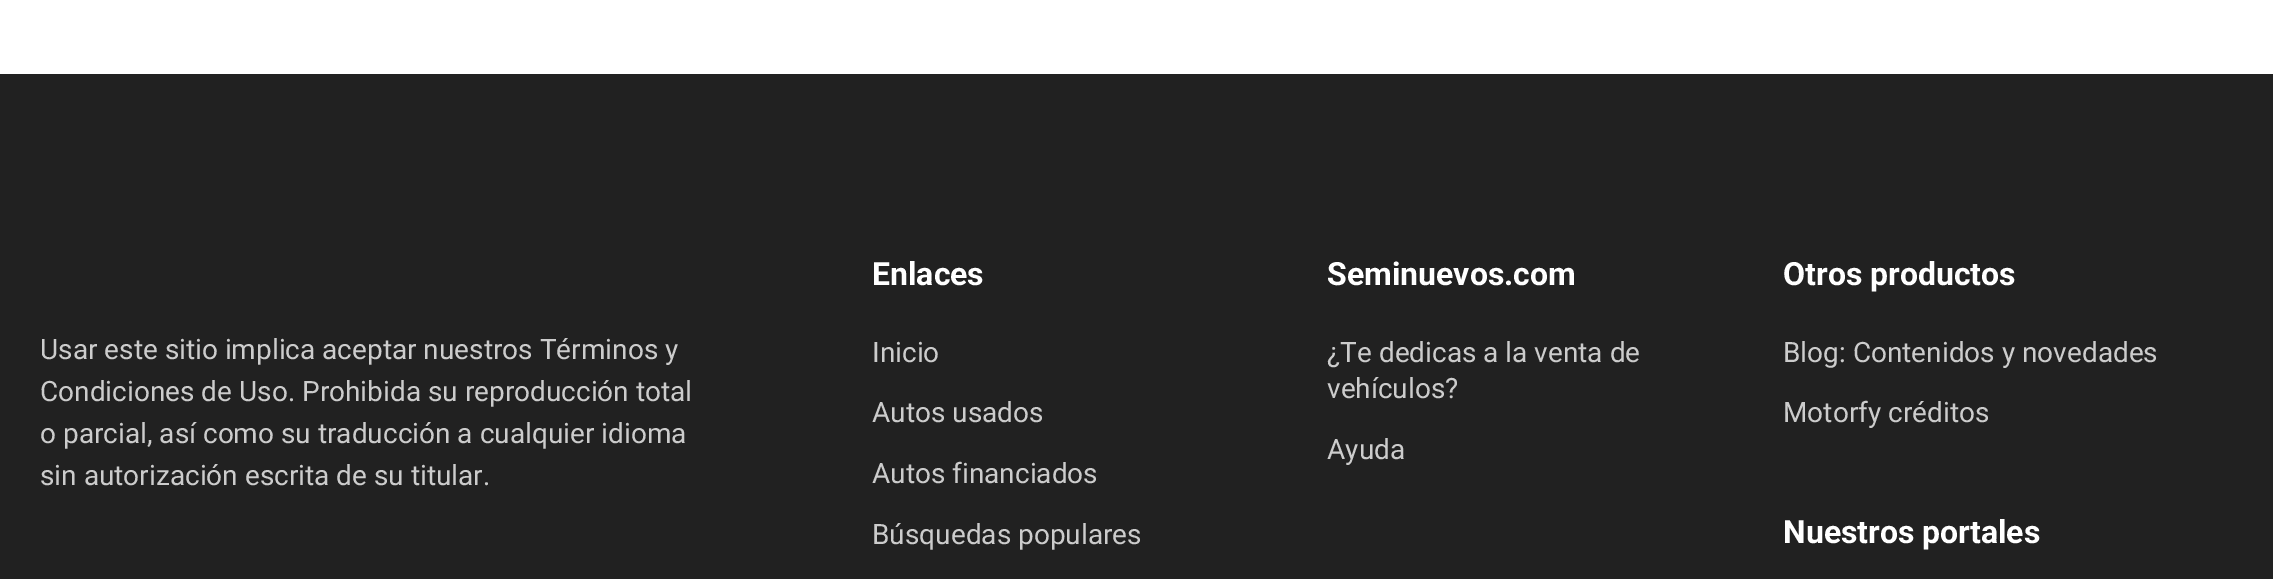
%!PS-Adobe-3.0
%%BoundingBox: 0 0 2273 579
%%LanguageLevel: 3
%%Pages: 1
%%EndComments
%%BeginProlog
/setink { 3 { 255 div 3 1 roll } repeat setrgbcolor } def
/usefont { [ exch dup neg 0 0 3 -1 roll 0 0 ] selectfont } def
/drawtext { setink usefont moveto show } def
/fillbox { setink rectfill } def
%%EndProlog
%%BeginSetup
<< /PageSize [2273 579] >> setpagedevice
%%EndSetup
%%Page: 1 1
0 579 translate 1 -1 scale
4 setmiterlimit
0 0 2273 579 255 255 255 fillbox
0 74 2273 505 33 33 33 fillbox
(Usar este sitio implica aceptar nuestros Términos y) 40 359 /Roboto-Regular 28 204 204 204 drawtext
(Condiciones de Uso. Prohibida su reproducción total) 40 401 /Roboto-Regular 28 204 204 204 drawtext
(o parcial, así como su traducción a cualquier idioma) 40 443 /Roboto-Regular 28 204 204 204 drawtext
(sin autorización escrita de su titular.) 40 485 /Roboto-Regular 28 204 204 204 drawtext
(Enlaces) 872 285 /Roboto-Bold 32 255 255 255 drawtext
(Inicio) 872 362 /Roboto-Regular 28 204 204 204 drawtext
(Autos usados) 872 422 /Roboto-Regular 28 204 204 204 drawtext
(Autos financiados) 872 483 /Roboto-Regular 28 204 204 204 drawtext
(Búsquedas populares) 872 544 /Roboto-Regular 28 204 204 204 drawtext
(Seminuevos.com) 1327 285 /Roboto-Bold 32 255 255 255 drawtext
(¿Te dedicas a la venta de) 1327 362 /Roboto-Regular 28 204 204 204 drawtext
(vehículos?) 1327 398 /Roboto-Regular 28 204 204 204 drawtext
(Ayuda) 1327 459 /Roboto-Regular 28 204 204 204 drawtext
(Otros productos) 1783 285 /Roboto-Bold 32 255 255 255 drawtext
(Blog: Contenidos y novedades) 1783 362 /Roboto-Regular 28 204 204 204 drawtext
(Motorfy créditos) 1783 422 /Roboto-Regular 28 204 204 204 drawtext
(Nuestros portales) 1783 543 /Roboto-Bold 32 255 255 255 drawtext
showpage
%%EOF
